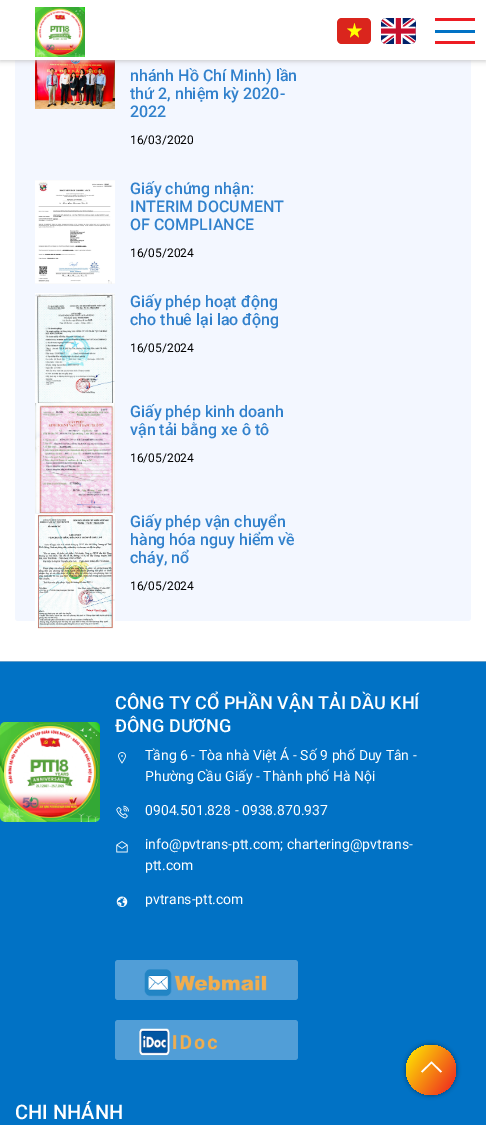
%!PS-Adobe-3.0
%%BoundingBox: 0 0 486 1125
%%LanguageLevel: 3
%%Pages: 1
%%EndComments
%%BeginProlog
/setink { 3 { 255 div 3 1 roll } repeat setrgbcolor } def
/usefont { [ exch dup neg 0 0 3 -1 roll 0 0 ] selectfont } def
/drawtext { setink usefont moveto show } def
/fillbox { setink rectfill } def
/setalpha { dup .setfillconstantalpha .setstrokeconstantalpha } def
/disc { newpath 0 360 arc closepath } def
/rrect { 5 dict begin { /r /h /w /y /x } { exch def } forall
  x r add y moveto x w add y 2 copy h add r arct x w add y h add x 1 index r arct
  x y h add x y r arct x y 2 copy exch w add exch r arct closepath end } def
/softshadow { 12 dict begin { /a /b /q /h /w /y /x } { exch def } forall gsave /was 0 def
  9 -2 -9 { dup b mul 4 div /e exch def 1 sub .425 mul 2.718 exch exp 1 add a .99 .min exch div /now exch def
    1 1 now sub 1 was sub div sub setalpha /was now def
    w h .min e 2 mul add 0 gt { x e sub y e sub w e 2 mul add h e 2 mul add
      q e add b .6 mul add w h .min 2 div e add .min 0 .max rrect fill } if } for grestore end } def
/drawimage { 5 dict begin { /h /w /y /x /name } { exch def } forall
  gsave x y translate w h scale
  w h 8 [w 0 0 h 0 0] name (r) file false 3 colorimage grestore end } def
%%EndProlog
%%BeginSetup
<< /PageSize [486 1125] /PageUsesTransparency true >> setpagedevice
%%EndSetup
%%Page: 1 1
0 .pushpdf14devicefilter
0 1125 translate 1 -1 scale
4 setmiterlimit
0 0 486 1125 255 255 255 fillbox
243 247 255 setink
15 -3 456 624 3 rrect fill
(assets/img3.rgb) 35 60 80 49 drawimage
199 199 199 setink
0 1 486 60 0 2.5 1 softshadow
0 0 486 60 255 255 255 fillbox
(assets/img1.rgb) 35 7 50 50 drawimage
435 30 40 3 1 114 197 fillbox
435 18 40 3 237 28 35 fillbox
435 41 40 3 237 28 35 fillbox
218 37 29 setink
366.5 18 moveto 341.5 18 lineto 339 18 337 20.5 337 23 curveto 337 39 lineto 337 41.5 339 44 341.5 44 curveto 366.5 44 lineto 369 44 371 41.5 371 39 curveto 371 23 lineto 371 20.5 369 18 366.5 18 curveto closepath fill
255 255 0 setink
359 37.5 moveto 354.5 34 lineto 350 37.5 lineto 351.5 32 lineto 347 28.5 lineto 353 28.5 lineto 354.5 23 lineto 356 28.5 lineto 362 28.5 lineto 357.5 32 lineto closepath eofill
(assets/img2.rgb) 381 18 35 26 drawimage
(nhánh Hồ Chí Minh\) lần) 130 81 /Roboto-Medium 16 49 129 204 drawtext
(thứ 2, nhiệm kỳ 2020-) 130 99 /Roboto-Medium 16 49 129 204 drawtext
(2022) 130 117 /Roboto-Medium 16 49 129 204 drawtext
(16/03/2020) 130 144 /Roboto-Regular 12 0 0 0 drawtext
(assets/img4.rgb) 35 180 80 104 drawimage
(Giấy chứng nhận:) 130 194 /Roboto-Medium 16 49 129 204 drawtext
(INTERIM DOCUMENT) 130 212 /Roboto-Medium 16 49 129 204 drawtext
(OF COMPLIANCE) 130 230 /Roboto-Medium 16 49 129 204 drawtext
(16/05/2024) 130 257 /Roboto-Regular 12 0 0 0 drawtext
(assets/img5.rgb) 35 293 80 110 drawimage
(Giấy phép hoạt động) 130 307 /Roboto-Medium 16 49 129 204 drawtext
(cho thuê lại lao động) 130 325 /Roboto-Medium 16 49 129 204 drawtext
(16/05/2024) 130 352 /Roboto-Regular 12 0 0 0 drawtext
(assets/img6.rgb) 35 403 80 110 drawimage
(Giấy phép kinh doanh) 130 417 /Roboto-Medium 16 49 129 204 drawtext
(vận tải bằng xe ô tô) 130 435 /Roboto-Medium 16 49 129 204 drawtext
(16/05/2024) 130 462 /Roboto-Regular 12 0 0 0 drawtext
(assets/img7.rgb) 35 513 80 116 drawimage
(Giấy phép vận chuyển) 130 527 /Roboto-Medium 16 49 129 204 drawtext
(hàng hóa nguy hiểm về) 130 545 /Roboto-Medium 16 49 129 204 drawtext
(cháy, nổ) 130 563 /Roboto-Medium 16 49 129 204 drawtext
(16/05/2024) 130 590 /Roboto-Regular 12 0 0 0 drawtext
0 662 486 463 1 114 197 fillbox
0 661 486 1 103 159 201 fillbox
(assets/img8.rgb) 0 722 100 100 drawimage
(CÔNG TY CỔ PHẦN VẬN TẢI DẦU KHÍ) 115 709 /Roboto-Medium 18 255 255 255 drawtext
(ĐÔNG DƯƠNG) 115 732 /Roboto-Medium 18 255 255 255 drawtext
(assets/img9.rgb) 118 752 8 12 drawimage
(Tầng 6 - Tòa nhà Việt Á - Số 9 phố Duy Tân -) 145 760 /Roboto-Regular 14 255 255 255 drawtext
(Phường Cầu Giấy - Thành phố Hà Nội) 145 781 /Roboto-Regular 14 255 255 255 drawtext
(assets/img10.rgb) 116 805 13 14 drawimage
(0904.501.828 - 0938.870.937) 145 815 /Roboto-Regular 14 255 255 255 drawtext
(assets/img11.rgb) 116 841 12 12 drawimage
(info@pvtrans-ptt.com; chartering@pvtrans-) 145 849 /Roboto-Regular 14 255 255 255 drawtext
(ptt.com) 145 870 /Roboto-Regular 14 255 255 255 drawtext
(assets/img12.rgb) 116 896 12 11 drawimage
(pvtrans-ptt.com) 145 904 /Roboto-Regular 14 255 255 255 drawtext
81 158 215 setink
115 960 183 40 3 rrect fill
(assets/img13.rgb) 144 969 123 28 drawimage
115 1020 183 40 3 rrect fill
(assets/img14.rgb) 139 1028 79 28 drawimage
(CHI NHÁNH) 15 1119 /Roboto-Medium 20 255 255 255 drawtext
0 0 0 setink
406 1045 50 50 25 2.5 0.5 softshadow
gsave 431 1070 25 disc clip newpath
<< /ShadingType 2 /ColorSpace /DeviceRGB /Coords [402 1050 460 1090] /Extend [true true] /Function << /FunctionType 2 /Domain [0 1] /C0 [1 0.949 0] /C1 [0.929 0.11 0.137] /N 1 >> >> shfill grestore
255 255 255 setink
431.5 1061.5 moveto 421 1071.5 lineto 422.5 1072.5 lineto 431.5 1063.5 lineto 440.5 1072.5 lineto 442 1071.5 lineto closepath fill
.poppdf14devicefilter showpage
%%EOF
